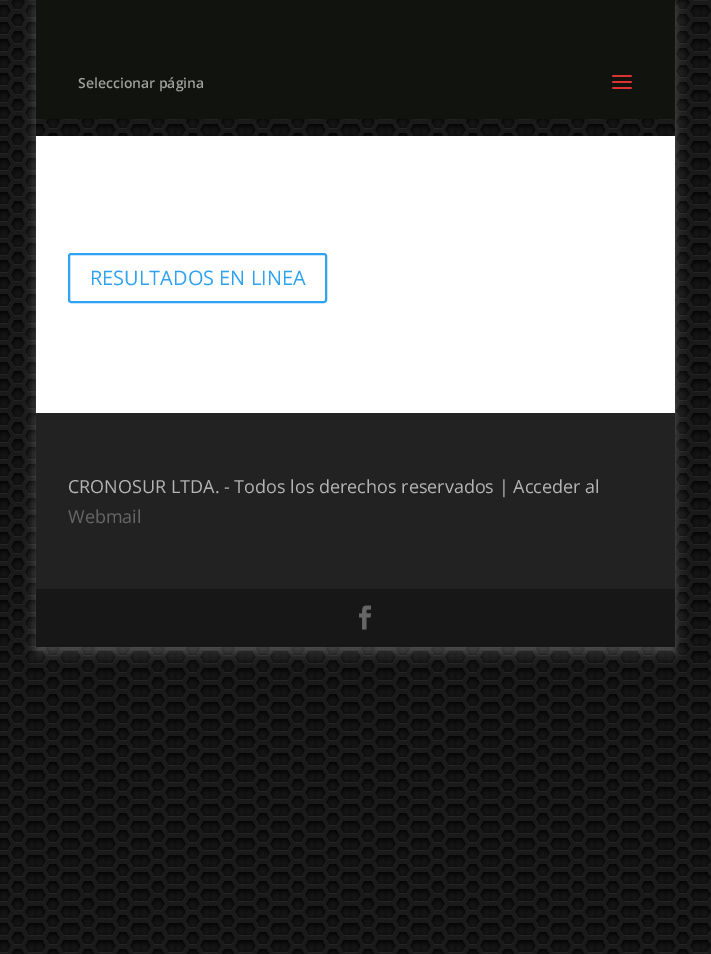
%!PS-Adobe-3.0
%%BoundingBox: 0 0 711 954
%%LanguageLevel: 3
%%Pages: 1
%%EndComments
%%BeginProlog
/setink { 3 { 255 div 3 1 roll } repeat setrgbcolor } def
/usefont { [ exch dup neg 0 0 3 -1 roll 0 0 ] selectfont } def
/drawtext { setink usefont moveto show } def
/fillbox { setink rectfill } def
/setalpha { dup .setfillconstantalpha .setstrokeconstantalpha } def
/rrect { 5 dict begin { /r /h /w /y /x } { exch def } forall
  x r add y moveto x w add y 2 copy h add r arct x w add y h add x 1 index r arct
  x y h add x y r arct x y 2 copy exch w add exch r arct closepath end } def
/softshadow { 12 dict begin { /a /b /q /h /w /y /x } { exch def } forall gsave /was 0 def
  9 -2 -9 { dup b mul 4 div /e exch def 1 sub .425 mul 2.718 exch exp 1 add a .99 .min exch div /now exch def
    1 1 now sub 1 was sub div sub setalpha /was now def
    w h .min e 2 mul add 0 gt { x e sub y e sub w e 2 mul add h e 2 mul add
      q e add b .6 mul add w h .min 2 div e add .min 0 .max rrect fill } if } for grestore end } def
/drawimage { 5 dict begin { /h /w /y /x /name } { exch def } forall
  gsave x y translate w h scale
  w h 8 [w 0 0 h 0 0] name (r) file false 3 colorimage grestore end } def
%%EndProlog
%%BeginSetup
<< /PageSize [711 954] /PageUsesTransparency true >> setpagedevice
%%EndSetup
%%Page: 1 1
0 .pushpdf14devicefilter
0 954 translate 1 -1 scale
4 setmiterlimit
0 0 711 954 255 255 255 fillbox
(assets/img1.rgb) 0 0 711 954 drawimage
gsave
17 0 moveto 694 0 lineto 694 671 lineto 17 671 lineto closepath 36 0 moveto 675 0 lineto 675 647 lineto 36 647 lineto closepath eoclip newpath
36 5 639 647 0 6 0.25 softshadow
grestore
0.1 setalpha
36 119 639 1 0 0 0 fillbox
1 setalpha
36 0 639 119 17 19 14 fillbox
(Seleccionar página) 78 88 /OpenSans-SemiBold 14 160 161 159 drawtext
(assets/img2.rgb) 612 75 20 14 drawimage
36 136 639 277 255 255 255 fillbox
46 163 242 setink
2 setlinewidth
69 254 257 48 2 rrect stroke
(RESULTADOS EN LINEA) 90 285 /OpenSans-Regular 20 46 163 242 drawtext
36 413 639 176 34 34 34 fillbox
(CRONOSUR LTDA. - Todos los derechos reservados | Acceder al) 68 493 /OpenSans-Regular 18 181 181 181 drawtext
(Webmail) 68 523 /OpenSans-Regular 18 102 102 102 drawtext
36 589 639 58 23 23 23 fillbox
(assets/img3.rgb) 359 605 12 25 drawimage
.poppdf14devicefilter showpage
%%EOF
